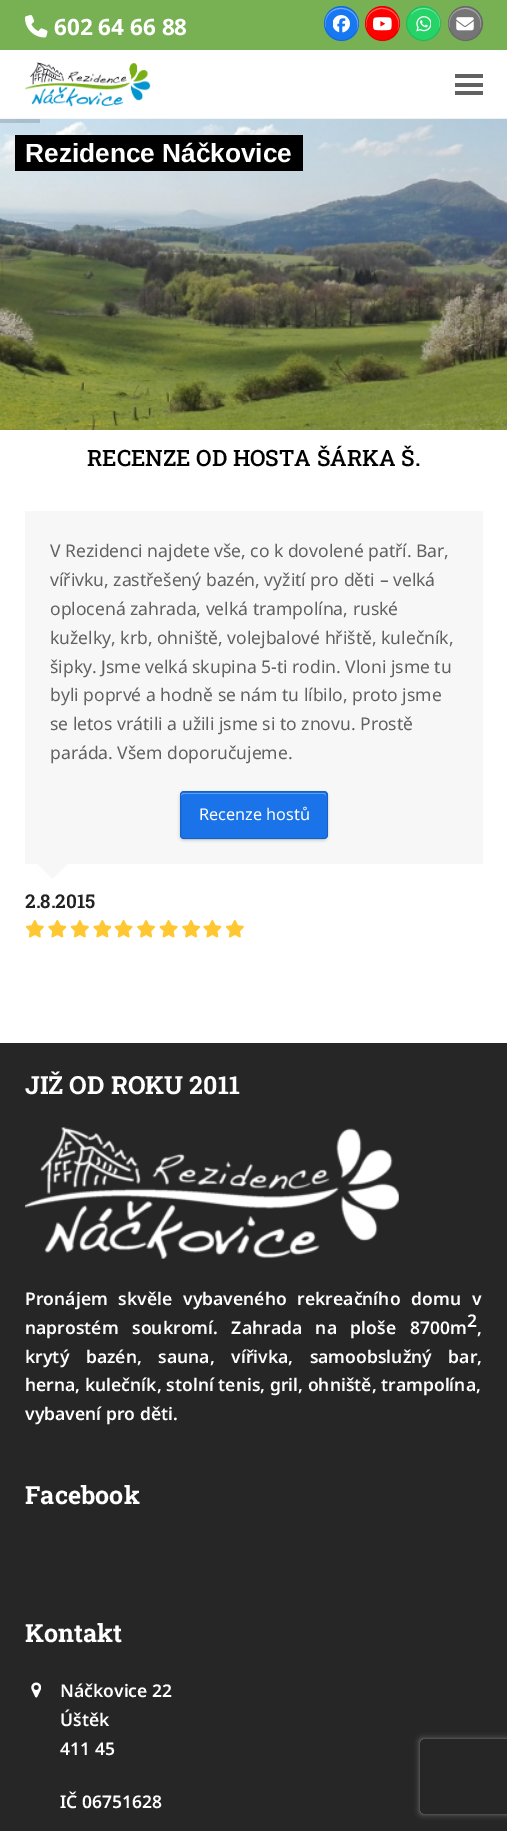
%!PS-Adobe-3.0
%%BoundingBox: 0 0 507 1831
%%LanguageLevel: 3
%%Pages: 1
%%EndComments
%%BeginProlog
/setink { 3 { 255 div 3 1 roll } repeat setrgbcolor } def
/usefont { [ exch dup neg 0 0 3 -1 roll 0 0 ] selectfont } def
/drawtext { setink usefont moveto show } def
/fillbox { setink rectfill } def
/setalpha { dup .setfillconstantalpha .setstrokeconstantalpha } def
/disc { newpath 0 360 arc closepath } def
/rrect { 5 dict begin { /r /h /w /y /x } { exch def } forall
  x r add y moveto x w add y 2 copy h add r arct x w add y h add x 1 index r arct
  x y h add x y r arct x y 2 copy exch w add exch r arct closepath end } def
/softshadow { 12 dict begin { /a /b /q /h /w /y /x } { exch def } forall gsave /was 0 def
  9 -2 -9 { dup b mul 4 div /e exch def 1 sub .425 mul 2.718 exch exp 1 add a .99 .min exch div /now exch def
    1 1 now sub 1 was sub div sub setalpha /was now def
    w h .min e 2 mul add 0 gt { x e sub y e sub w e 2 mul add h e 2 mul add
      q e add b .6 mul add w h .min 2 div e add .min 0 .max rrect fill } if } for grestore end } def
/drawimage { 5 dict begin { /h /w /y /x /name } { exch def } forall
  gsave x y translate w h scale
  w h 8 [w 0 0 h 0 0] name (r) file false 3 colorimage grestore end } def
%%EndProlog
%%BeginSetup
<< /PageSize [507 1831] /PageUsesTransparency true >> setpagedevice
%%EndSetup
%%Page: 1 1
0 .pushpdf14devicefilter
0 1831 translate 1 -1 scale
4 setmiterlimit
0 0 507 1831 255 255 255 fillbox
0 0 507 50 120 177 83 fillbox
(assets/img1.rgb) 25 15 23 23 drawimage
(602 64 66 88) 54 35 /NotoSans-Bold 22.5 255 255 255 drawtext
24 119 242 setink
341.5 23.5 17.5 disc fill
116 173 247 setink
341 9 moveto 354.5 9 360 21.5 356.5 30.5 curveto 365 12.5 338.5 -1 327.5 15 curveto 325 19 324.5 23.5 325.5 28 curveto 324 19 329 9 341 9 curveto closepath fill
0.1 setalpha
0 0 0 setink
341.5 23.5 17 disc stroke
1 setalpha
(assets/img2.rgb) 333 15 17 18 drawimage
255 0 0 setink
382.5 23.5 17.5 disc fill
255 102 102 setink
382 9 moveto 395.5 9 401 21.5 397.5 30.5 curveto 406 12.5 379.5 -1 368.5 15 curveto 366 19 365.5 23.5 366.5 28 curveto 365 19 370 9 382 9 curveto closepath fill
0.1 setalpha
0 0 0 setink
382.5 23.5 17 disc stroke
1 setalpha
(assets/img3.rgb) 373 17 19 14 drawimage
37 211 102 setink
423.5 23.5 17.5 disc fill
124 229 163 setink
424 9 moveto 436 9 441 19 439.5 28 curveto 444 10.5 420.5 0.5 410.5 15 curveto 413.5 11.5 418 9 424 9 curveto closepath fill
0.1 setalpha
0 0 0 setink
423.5 23.5 17 disc stroke
1 setalpha
(assets/img4.rgb) 416 16 15 16 drawimage
117 117 117 setink
465.5 23.5 17.5 disc fill
172 172 172 setink
465 9 moveto 477 9 482 19 480.5 28 curveto 481.5 23.5 481 19 478.5 15 curveto 468 0 445 11 449.5 28 curveto 448 19 453 9 465 9 curveto closepath fill
0.1 setalpha
0 0 0 setink
465.5 23.5 17 disc stroke
1 setalpha
(assets/img5.rgb) 456 17 18 14 drawimage
(assets/img6.rgb) 25 62 126 45 drawimage
455 83 28 4 97 97 97 fillbox
455 74 28 4 97 97 97 fillbox
455 91 28 4 97 97 97 fillbox
(assets/img7.rgb) 0 118 507 312 drawimage
0.15 setalpha
0 119 40 4 0 0 0 fillbox
1 setalpha
15 135 288 36 0 0 0 fillbox
(Rezidence Náčkovice) 25 162 /LiberationSans-Bold 26.25 255 255 255 drawtext
(RECENZE OD HOSTA ŠÁRKA Š.) 87 466 /RobotoSlab-Medium 22.5 0 0 0 drawtext
25 511 458 353 247 247 247 fillbox
(V Rezidenci najdete vše, co k dovolené patří. Bar,) 50 557 /NotoSans-Regular 17.5 97 97 97 drawtext
(vířivku, zastřešený bazén, vyžití pro děti – velká) 50 586 /NotoSans-Regular 17.5 97 97 97 drawtext
(oplocená zahrada, velká trampolína, ruské) 50 615 /NotoSans-Regular 17.5 97 97 97 drawtext
(kuželky, krb, ohniště, volejbalové hřiště, kulečník,) 50 644 /NotoSans-Regular 17.5 97 97 97 drawtext
(šipky. Jsme velká skupina 5-ti rodin. Vloni jsme tu) 50 673 /NotoSans-Regular 17.5 97 97 97 drawtext
(byli poprvé a hodně se nám tu líbilo, proto jsme) 50 701 /NotoSans-Regular 17.5 97 97 97 drawtext
(se letos vrátili a užili jsme si to znovu. Prostě) 50 730 /NotoSans-Regular 17.5 97 97 97 drawtext
(paráda. Všem doporučujeme.) 50 759 /NotoSans-Regular 17.5 97 97 97 drawtext
45 60 72 setink
181 794 145 45 2.5 2 0.5 softshadow
26 115 232 setink
180 791 148 48 4 rrect fill
95 157 239 setink
184 794 moveto 324 794 lineto 325 794 326 795 326 796 curveto 326 794 325 793 324 793 curveto 184 793 lineto 182 793 181 794 181 796 curveto 181 795 182 794 184 794 curveto closepath fill
0.15 setalpha
0 0 0 setink
180.5 791.5 147 47 3.5 rrect stroke
1 setalpha
(Recenze hostů) 199 820 /NotoSans-Regular 16.25 255 255 255 drawtext
247 247 247 setink
37.5 864 moveto 67.5 864 lineto 52.5 879 lineto closepath fill
(2.8.2015) 25 908 /RobotoSlab-SemiBold 19 34 34 34 drawtext
(assets/img8.rgb) 25 920 19 18 drawimage
(assets/img9.rgb) 48 920 19 18 drawimage
(assets/img8.rgb) 70 920 19 18 drawimage
(assets/img10.rgb) 93 920 18 18 drawimage
(assets/img11.rgb) 114 920 19 18 drawimage
(assets/img12.rgb) 137 920 19 18 drawimage
(assets/img11.rgb) 159 920 19 18 drawimage
(assets/img13.rgb) 182 920 18 18 drawimage
(assets/img9.rgb) 203 920 19 18 drawimage
(assets/img8.rgb) 225 920 19 18 drawimage
0 1043 507 788 38 38 38 fillbox
(JIŽ OD ROKU 2011) 25 1094 /RobotoSlab-Bold 25 255 255 255 drawtext
(assets/img14.rgb) 25 1127 374 132 drawimage
/NotoSans-SemiBold 17.5 usefont
25 1305 moveto 6.25 0 32 (Pronájem skvěle vybaveného rekreačního domu v) widthshow
25 1334 moveto 9 0 32 (naprostém soukromí. Zahrada na ploše 8700m) widthshow
(2) 467 1327 /NotoSans-SemiBold 17.5 255 255 255 drawtext
(,) 477 1334 /NotoSans-SemiBold 17.5 255 255 255 drawtext
25 1363 moveto 12 0 32 (krytý bazén, sauna, vířivka, samoobslužný bar,) widthshow
(herna, kulečník, stolní tenis, gril, ohniště, trampolína,) 25 1391 /NotoSans-SemiBold 17.5 255 255 255 drawtext
(vybavení pro děti.) 25 1420 /NotoSans-SemiBold 17.5 255 255 255 drawtext
(Facebook) 25 1504 /RobotoSlab-Bold 25 255 255 255 drawtext
(Kontakt) 25 1642 /RobotoSlab-Bold 25 255 255 255 drawtext
(assets/img15.rgb) 31 1682 10 16 drawimage
(Náčkovice 22) 60 1697 /NotoSans-SemiBold 17.5 255 255 255 drawtext
(Úštěk) 60 1726 /NotoSans-SemiBold 17.5 255 255 255 drawtext
(411 45) 60 1755 /NotoSans-SemiBold 17.5 255 255 255 drawtext
(IČ 06751628) 60 1808 /NotoSans-SemiBold 17.5 255 255 255 drawtext
gsave
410 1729 moveto 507 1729 lineto 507 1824 lineto 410 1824 lineto closepath 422.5 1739 moveto 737.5 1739 lineto 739 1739 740 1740 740 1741.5 curveto 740 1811.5 lineto 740 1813 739 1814 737.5 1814 curveto 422.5 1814 lineto 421 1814 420 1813 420 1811.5 curveto 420 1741.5 lineto 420 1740 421 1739 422.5 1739 curveto closepath eoclip newpath
128 128 128 setink
420 1739 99 75 2.5 3 1 softshadow
grestore
.poppdf14devicefilter showpage
%%EOF
